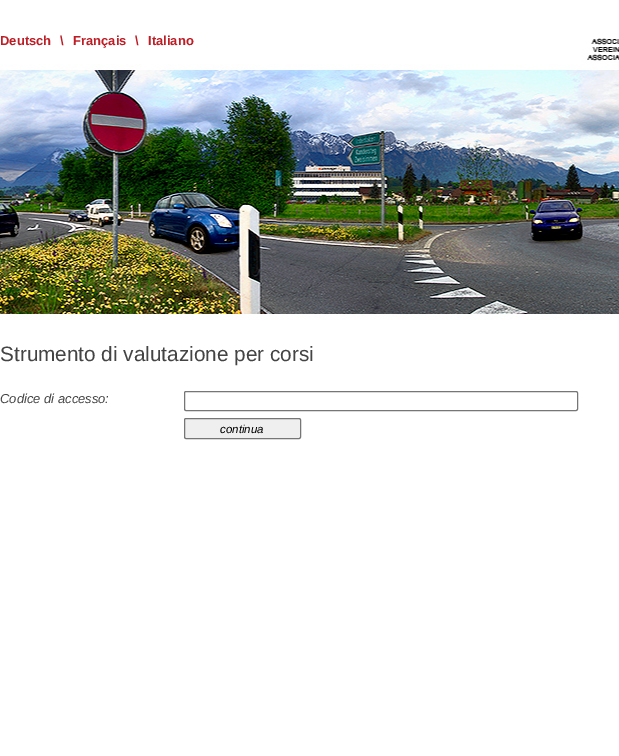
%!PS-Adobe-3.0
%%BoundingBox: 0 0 619 756
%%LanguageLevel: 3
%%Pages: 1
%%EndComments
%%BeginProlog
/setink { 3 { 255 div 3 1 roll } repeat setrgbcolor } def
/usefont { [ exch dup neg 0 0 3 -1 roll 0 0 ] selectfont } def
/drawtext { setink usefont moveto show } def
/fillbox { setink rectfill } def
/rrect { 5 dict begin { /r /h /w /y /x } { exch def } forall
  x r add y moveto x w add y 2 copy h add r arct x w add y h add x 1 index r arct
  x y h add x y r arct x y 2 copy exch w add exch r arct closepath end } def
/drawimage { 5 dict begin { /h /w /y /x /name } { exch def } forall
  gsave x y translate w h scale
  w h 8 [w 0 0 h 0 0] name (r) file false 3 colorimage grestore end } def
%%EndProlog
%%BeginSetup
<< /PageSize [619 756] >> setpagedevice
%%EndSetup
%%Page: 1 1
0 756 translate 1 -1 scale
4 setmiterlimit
0 0 619 756 255 255 255 fillbox
(assets/img1.rgb) 0 38 619 282 drawimage
(Deutsch) 0 45 /LiberationSans-Bold 13 189 29 37 drawtext
(\\) 60 45 /LiberationSans-Bold 13 189 29 37 drawtext
(Français) 73 45 /LiberationSans-Bold 13 189 29 37 drawtext
(\\) 135 45 /LiberationSans-Bold 13 189 29 37 drawtext
(Italiano) 148 45 /LiberationSans-Bold 13 189 29 37 drawtext
(Strumento di valutazione per corsi) 0 361 /LiberationSans-Regular 20.75 68 68 68 drawtext
(Codice di accesso:) 0 403 /LiberationSans-Italic 13 68 68 68 drawtext
118 118 118 setink
184.5 391.5 393 19 1.5 rrect stroke
239 239 239 setink
184.5 418.5 116 20 1.5 rrect gsave fill grestore
118 118 118 setink
stroke
(continua) 220 433 /LiberationSans-Italic 11.5 0 0 0 drawtext
showpage
%%EOF
